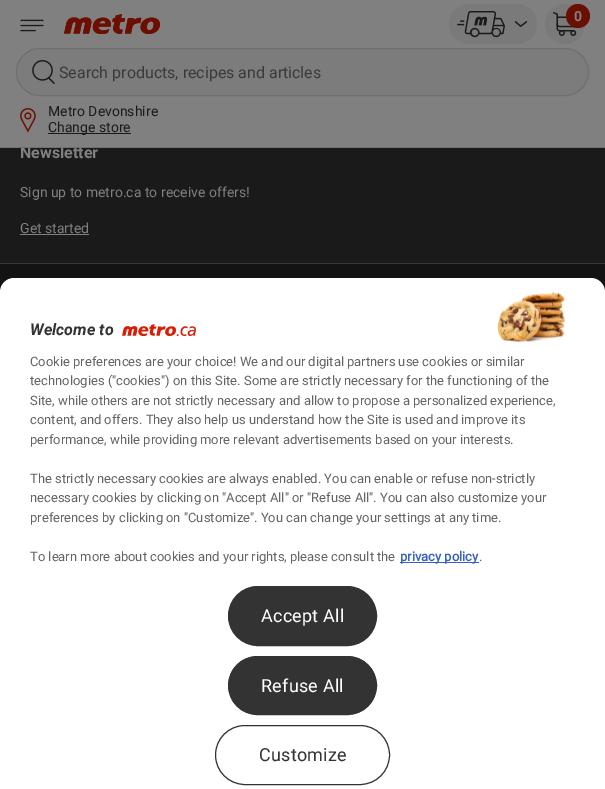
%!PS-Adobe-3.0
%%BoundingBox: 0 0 605 789
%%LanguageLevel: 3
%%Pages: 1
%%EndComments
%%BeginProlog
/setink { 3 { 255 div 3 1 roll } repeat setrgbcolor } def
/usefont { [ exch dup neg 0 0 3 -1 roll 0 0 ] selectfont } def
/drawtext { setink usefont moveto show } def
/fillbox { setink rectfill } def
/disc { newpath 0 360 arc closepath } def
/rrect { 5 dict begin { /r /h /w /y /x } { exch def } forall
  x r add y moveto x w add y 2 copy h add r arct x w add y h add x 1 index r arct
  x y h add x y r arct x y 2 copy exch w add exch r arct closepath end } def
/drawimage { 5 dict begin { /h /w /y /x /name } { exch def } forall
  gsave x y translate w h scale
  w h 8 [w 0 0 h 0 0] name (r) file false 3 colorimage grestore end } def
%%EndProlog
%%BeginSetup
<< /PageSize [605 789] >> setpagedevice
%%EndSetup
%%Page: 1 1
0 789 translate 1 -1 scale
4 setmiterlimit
0 0 605 789 26 26 26 fillbox
0 0 605 147 128 128 128 fillbox
(Newsletter) 20 158 /Roboto-Bold 16 128 128 128 drawtext
0 147 605 1 112 112 112 fillbox
(assets/img1.rgb) 20 19 24 13 drawimage
(assets/img2.rgb) 64 14 96 20 drawimage
122 122 122 setink
449 4 88 40 20 rrect fill
(assets/img3.rgb) 457 11 48 27 drawimage
(assets/img4.rgb) 515 21 12 6 drawimage
565 24 20 disc fill
(assets/img5.rgb) 553 12 24 24 drawimage
108 15 3 setink
578 16 12 disc fill
(0) 574 21 /Roboto-Bold 14 128 128 128 drawtext
124 124 124 setink
16 48 573 48 24 rrect fill
(assets/img6.rgb) 32 60 23 24 drawimage
112 112 112 setink
16.5 48.5 572 47 23.5 rrect stroke
(Search products, recipes and articles) 59 78 /Roboto-Regular 16 59 59 59 drawtext
(assets/img7.rgb) 20 108 16 24 drawimage
(Metro Devonshire) 48 116 /Roboto-Regular 14 26 26 26 drawtext
48 133 83 1 26 26 26 fillbox
(Change store) 48 132 /Roboto-Regular 14 26 26 26 drawtext
(Sign up to metro.ca to receive offers!) 20 197 /Roboto-Regular 14 128 128 128 drawtext
(Get started) 20 233 /Roboto-Regular 14 128 128 128 drawtext
20 234 69 1 128 128 128 fillbox
0 264 605 28 19 19 19 fillbox
0 263 605 1 55 55 55 fillbox
255 255 255 setink
14 278 moveto 591 278 lineto 598.5 278 605 284.5 605 292 curveto 605 789 lineto 0 789 lineto 0 292 lineto 0 284.5 6.5 278 14 278 curveto closepath fill
(assets/img8.rgb) 497 291 69 52 drawimage
(Welcome to) 30 335 /Roboto-BoldItalic 16 51 51 51 drawtext
(assets/img9.rgb) 122 324 74 12 drawimage
(Cookie preferences are your choice! We and our digital partners use cookies or similar) 30 366 /Roboto-Regular 13 100 100 100 drawtext
(technologies \("cookies"\) on this Site. Some are strictly necessary for the functioning of the) 30 385 /Roboto-Regular 13 100 100 100 drawtext
(Site, while others are not strictly necessary and allow to propose a personalized experience,) 30 405 /Roboto-Regular 13 100 100 100 drawtext
(content, and offers. They also help us understand how the Site is used and improve its) 30 424 /Roboto-Regular 13 100 100 100 drawtext
(performance, while providing more relevant advertisements based on your interests.) 30 444 /Roboto-Regular 13 100 100 100 drawtext
(The strictly necessary cookies are always enabled. You can enable or refuse non-strictly) 30 483 /Roboto-Regular 13 100 100 100 drawtext
(necessary cookies by clicking on "Accept All" or "Refuse All". You can also customize your) 30 502 /Roboto-Regular 13 100 100 100 drawtext
(preferences by clicking on "Customize". You can change your settings at any time.) 30 522 /Roboto-Regular 13 100 100 100 drawtext
(To learn more about cookies and your rights, please consult the) 30 561 /Roboto-Regular 13 100 100 100 drawtext
400 562 79 1 56 96 190 fillbox
(privacy policy) 400 561 /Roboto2-Bold 13 56 96 190 drawtext
(.) 479 561 /Roboto-Regular 13 100 100 100 drawtext
51 51 51 setink
228.5 586.5 148 59 29.5 rrect gsave fill grestore
stroke
/Roboto-Regular 18 usefont
255 255 255 setink
261 622 moveto 0.25 0 (Accept All) ashow
51 51 51 setink
228.5 656.5 148 58 29 rrect gsave fill grestore
stroke
255 255 255 setink
261 692 moveto 0.25 0 (Refuse All) ashow
51 51 51 setink
215.5 725.5 174 59 29.5 rrect stroke
259 761 moveto 0.25 0 (Customize) ashow
showpage
%%EOF
